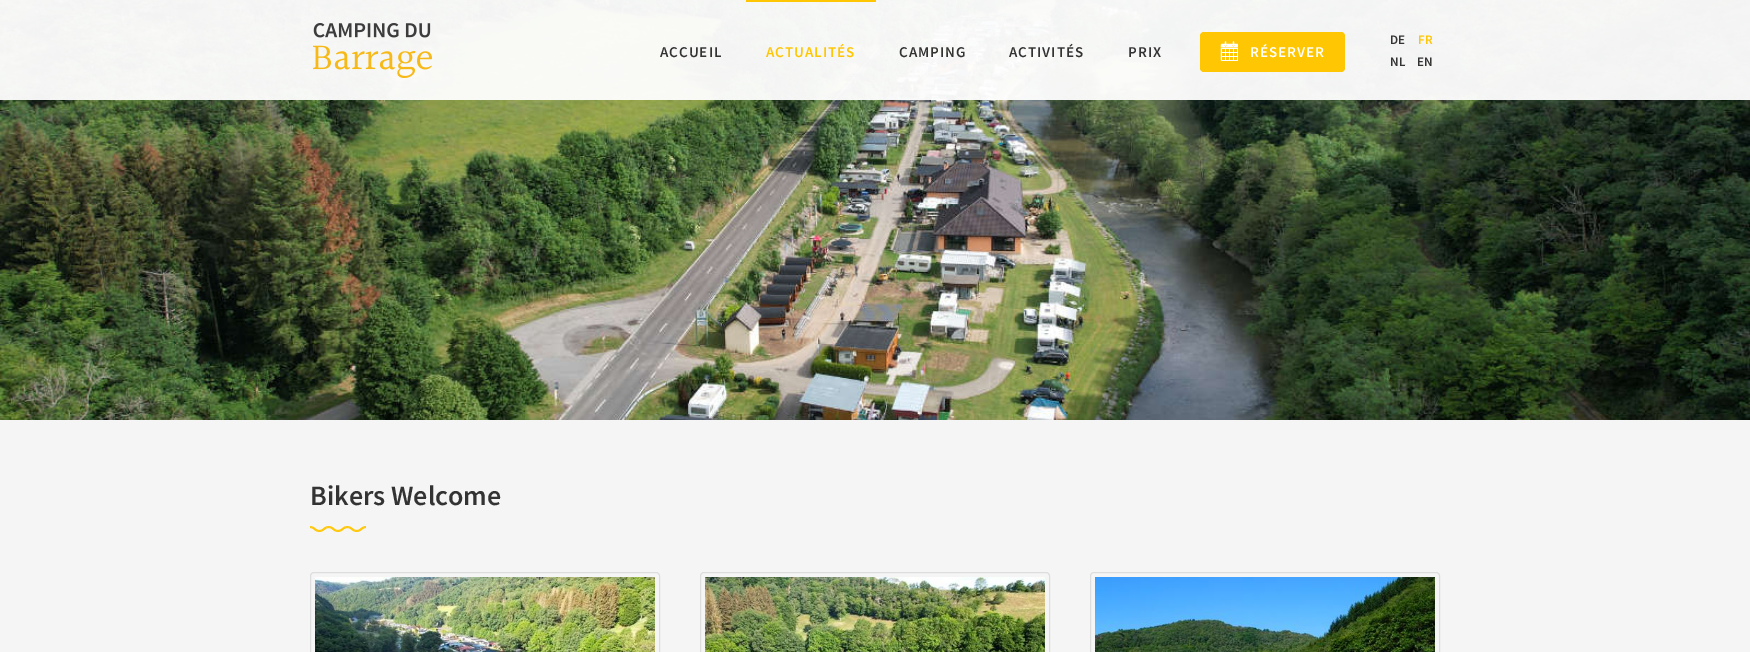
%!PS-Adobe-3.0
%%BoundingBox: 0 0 1750 652
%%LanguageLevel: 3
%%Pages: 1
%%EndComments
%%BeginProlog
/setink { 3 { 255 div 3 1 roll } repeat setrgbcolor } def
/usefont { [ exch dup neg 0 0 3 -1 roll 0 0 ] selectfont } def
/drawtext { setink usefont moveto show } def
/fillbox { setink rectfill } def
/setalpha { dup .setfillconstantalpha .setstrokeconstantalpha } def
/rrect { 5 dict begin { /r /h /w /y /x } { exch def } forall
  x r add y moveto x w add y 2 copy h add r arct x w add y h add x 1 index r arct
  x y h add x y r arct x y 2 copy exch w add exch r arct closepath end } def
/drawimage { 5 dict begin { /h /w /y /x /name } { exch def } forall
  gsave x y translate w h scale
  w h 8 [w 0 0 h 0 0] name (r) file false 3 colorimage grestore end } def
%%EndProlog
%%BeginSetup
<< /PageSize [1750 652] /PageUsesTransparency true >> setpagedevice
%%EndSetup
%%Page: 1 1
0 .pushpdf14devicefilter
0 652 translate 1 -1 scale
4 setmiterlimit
0 0 1750 652 245 245 245 fillbox
(assets/img1.rgb) 0 0 1750 420 drawimage
0.95 setalpha
0 0 1750 100 255 255 255 fillbox
1 setalpha
(assets/img2.rgb) 313 23 119 55 drawimage
/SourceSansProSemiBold-SemiBold 15 usefont
51 51 51 setink
660 57 moveto 1 0 (ACCUEIL) ashow
746 0 130 2 255 198 4 fillbox
766 57 moveto 1 0 (ACTUALITÉS) ashow
51 51 51 setink
899 57 moveto 1 0 (CAMPING) ashow
1009 57 moveto 1 0 (ACTIVITÉS) ashow
1128 57 moveto 1 0 (PRIX) ashow
255 198 4 setink
1200 32 145 40 4 rrect fill
(assets/img3.rgb) 1220 41 18 20 drawimage
255 255 255 setink
1250 57 moveto 1 0 (RÉSERVER) ashow
(DE) 1390 44 /SourceSansProSemiBold-SemiBold 13 51 51 51 drawtext
(FR) 1418 44 /SourceSansProSemiBold-SemiBold 13 255 198 4 drawtext
(NL) 1390 66 /SourceSansProSemiBold-SemiBold 13 51 51 51 drawtext
(EN) 1417 66 /SourceSansProSemiBold-SemiBold 13 51 51 51 drawtext
(Bikers Welcome) 310 505 /SourceSansProSemiBold-SemiBold 28 51 51 51 drawtext
(assets/img4.rgb) 310 526 56 6 drawimage
221 221 221 setink
310.5 572.5 349 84 3.5 rrect stroke
(assets/img5.rgb) 315 577 340 75 drawimage
700.5 572.5 349 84 3.5 rrect stroke
(assets/img6.rgb) 705 577 340 75 drawimage
1090.5 572.5 349 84 3.5 rrect stroke
(assets/img7.rgb) 1095 577 340 75 drawimage
.poppdf14devicefilter showpage
%%EOF
